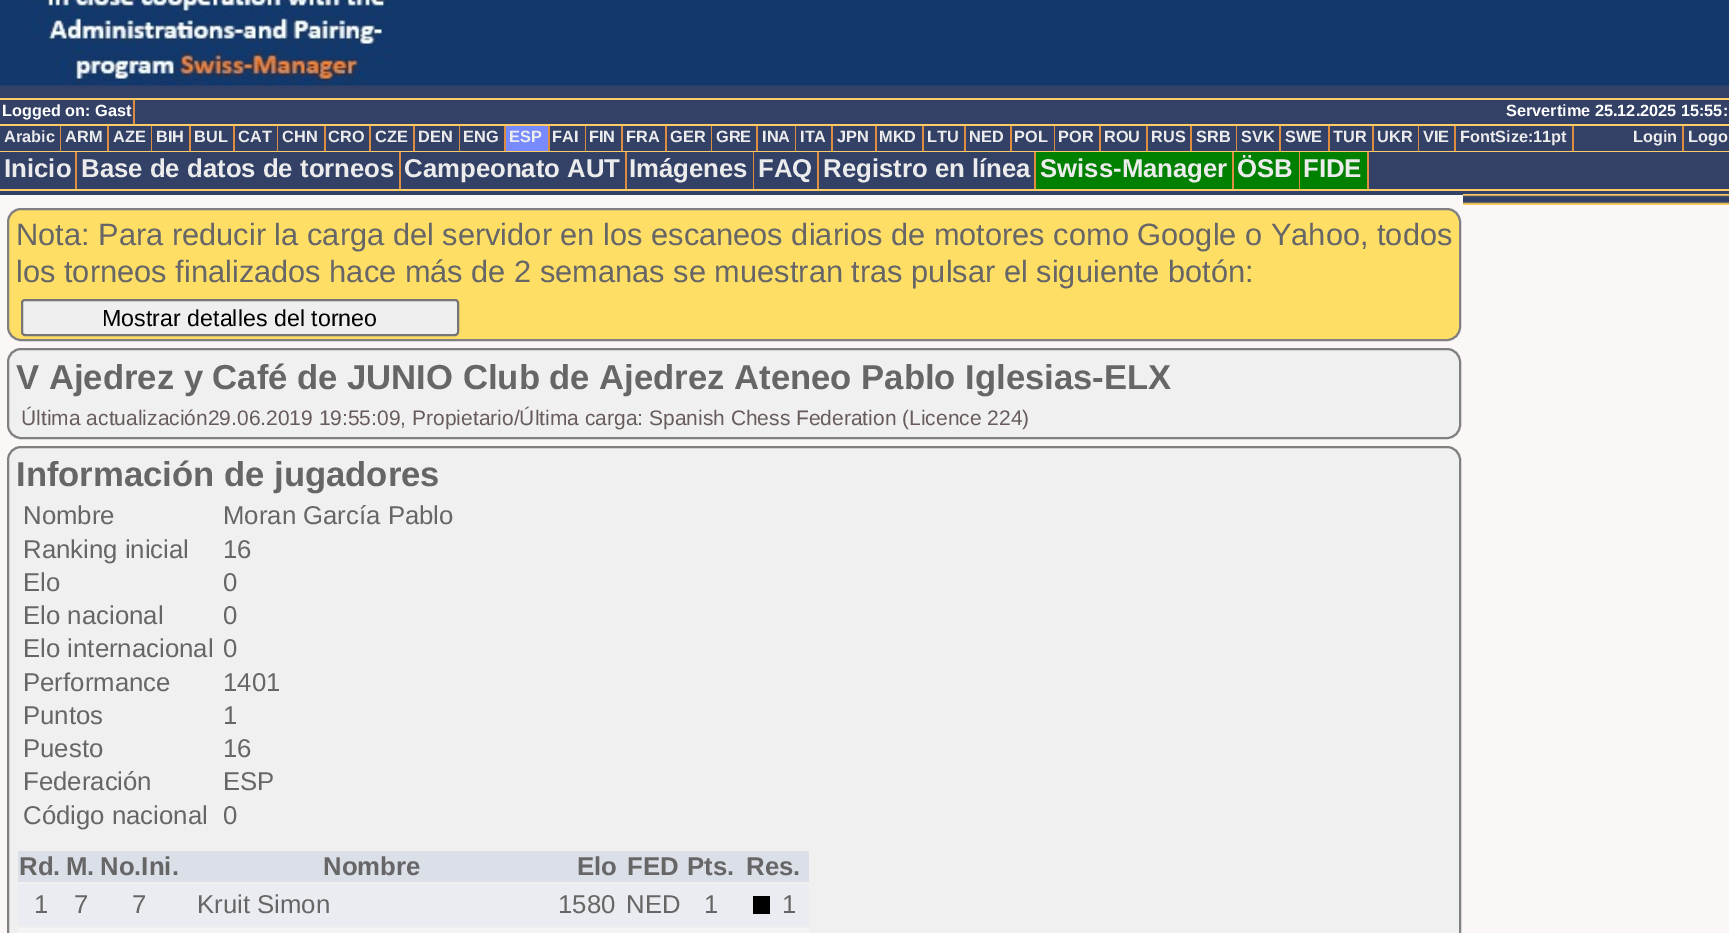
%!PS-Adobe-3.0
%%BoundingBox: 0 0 1729 933
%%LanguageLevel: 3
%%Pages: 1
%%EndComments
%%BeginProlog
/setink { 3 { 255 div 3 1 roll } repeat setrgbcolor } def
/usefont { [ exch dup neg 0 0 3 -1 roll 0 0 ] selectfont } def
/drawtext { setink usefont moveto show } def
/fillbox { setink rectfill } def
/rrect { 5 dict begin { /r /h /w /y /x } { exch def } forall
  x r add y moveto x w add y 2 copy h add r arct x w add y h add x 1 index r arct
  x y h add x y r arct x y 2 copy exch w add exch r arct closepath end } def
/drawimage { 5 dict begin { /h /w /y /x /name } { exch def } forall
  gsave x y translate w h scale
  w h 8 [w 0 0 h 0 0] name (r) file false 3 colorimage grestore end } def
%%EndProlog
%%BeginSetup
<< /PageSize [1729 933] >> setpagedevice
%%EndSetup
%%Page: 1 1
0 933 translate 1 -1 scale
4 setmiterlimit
0 0 1729 933 251 247 247 fillbox
0 85 1729 13 51 65 102 fillbox
(assets/img1.rgb) 0 0 1729 86 drawimage
0 100 1729 24 51 65 102 fillbox
0 98 1729 2 255 204 102 fillbox
0 124 1729 2 255 204 102 fillbox
133 100 2 24 221 140 64 fillbox
(Logged on: Gast) 2 116 /LiberationSans-Bold 16.3 255 255 255 drawtext
(Servertime 25.12.2025 15:55:) 1506 116 /LiberationSans-Bold 16.3 255 255 255 drawtext
0 126 1729 25 51 65 102 fillbox
0 151 1729 1 255 204 102 fillbox
60 126 1 25 221 140 64 fillbox
(Arabic) 4 142 /LiberationSans-Bold 16.3 236 236 236 drawtext
107 126 2 25 221 140 64 fillbox
(ARM) 65 142 /LiberationSans-Bold 16.3 236 236 236 drawtext
151 126 1 25 221 140 64 fillbox
(AZE) 113 142 /LiberationSans-Bold 16.3 236 236 236 drawtext
189 126 2 25 221 140 64 fillbox
(BIH) 156 142 /LiberationSans-Bold 16.3 236 236 236 drawtext
233 126 2 25 221 140 64 fillbox
(BUL) 194 142 /LiberationSans-Bold 16.3 236 236 236 drawtext
277 126 1 25 221 140 64 fillbox
(CAT) 238 142 /LiberationSans-Bold 16.3 236 236 236 drawtext
324 126 2 25 221 140 64 fillbox
(CHN) 282 142 /LiberationSans-Bold 16.3 236 236 236 drawtext
369 126 2 25 221 140 64 fillbox
(CRO) 328 142 /LiberationSans-Bold 16.3 236 236 236 drawtext
413 126 2 25 221 140 64 fillbox
(CZE) 375 142 /LiberationSans-Bold 16.3 236 236 236 drawtext
459 126 1 25 221 140 64 fillbox
(DEN) 418 142 /LiberationSans-Bold 16.3 236 236 236 drawtext
504 126 2 25 221 140 64 fillbox
(ENG) 463 142 /LiberationSans-Bold 16.3 236 236 236 drawtext
506 126 42 25 120 138 255 fillbox
548 126 2 25 221 140 64 fillbox
(ESP) 509 142 /LiberationSans-Bold 16.3 236 236 236 drawtext
585 126 1 25 221 140 64 fillbox
(FAI) 552 142 /LiberationSans-Bold 16.3 236 236 236 drawtext
621 126 2 25 221 140 64 fillbox
(FIN) 589 142 /LiberationSans-Bold 16.3 236 236 236 drawtext
665 126 2 25 221 140 64 fillbox
(FRA) 626 142 /LiberationSans-Bold 16.3 236 236 236 drawtext
711 126 1 25 221 140 64 fillbox
(GER) 670 142 /LiberationSans-Bold 16.3 236 236 236 drawtext
756 126 2 25 221 140 64 fillbox
(GRE) 716 142 /LiberationSans-Bold 16.3 236 236 236 drawtext
795 126 1 25 221 140 64 fillbox
(INA) 762 142 /LiberationSans-Bold 16.3 236 236 236 drawtext
831 126 2 25 221 140 64 fillbox
(ITA) 800 142 /LiberationSans-Bold 16.3 236 236 236 drawtext
875 126 2 25 221 140 64 fillbox
(JPN) 837 142 /LiberationSans-Bold 16.3 236 236 236 drawtext
922 126 2 25 221 140 64 fillbox
(MKD) 879 142 /LiberationSans-Bold 16.3 236 236 236 drawtext
964 126 2 25 221 140 64 fillbox
(LTU) 927 142 /LiberationSans-Bold 16.3 236 236 236 drawtext
1010 126 2 25 221 140 64 fillbox
(NED) 969 142 /LiberationSans-Bold 16.3 236 236 236 drawtext
1054 126 1 25 221 140 64 fillbox
(POL) 1014 142 /LiberationSans-Bold 16.3 236 236 236 drawtext
1099 126 2 25 221 140 64 fillbox
(POR) 1058 142 /LiberationSans-Bold 16.3 236 236 236 drawtext
1146 126 2 25 221 140 64 fillbox
(ROU) 1104 142 /LiberationSans-Bold 16.3 236 236 236 drawtext
1190 126 2 25 221 140 64 fillbox
(RUS) 1151 142 /LiberationSans-Bold 16.3 236 236 236 drawtext
1236 126 1 25 221 140 64 fillbox
(SRB) 1196 142 /LiberationSans-Bold 16.3 236 236 236 drawtext
1279 126 2 25 221 140 64 fillbox
(SVK) 1241 142 /LiberationSans-Bold 16.3 236 236 236 drawtext
1328 126 2 25 221 140 64 fillbox
(SWE) 1285 142 /LiberationSans-Bold 16.3 236 236 236 drawtext
1372 126 2 25 221 140 64 fillbox
(TUR) 1333 142 /LiberationSans-Bold 16.3 236 236 236 drawtext
1418 126 1 25 221 140 64 fillbox
(UKR) 1377 142 /LiberationSans-Bold 16.3 236 236 236 drawtext
1454 126 2 25 221 140 64 fillbox
(VIE) 1423 142 /LiberationSans-Bold 16.3 236 236 236 drawtext
1572 126 2 25 221 140 64 fillbox
(FontSize:11pt) 1460 142 /LiberationSans-Bold 16.3 236 236 236 drawtext
1682 126 2 25 221 140 64 fillbox
(Login) 1633 142 /LiberationSans-Bold 16.3 236 236 236 drawtext
(Logo) 1688 142 /LiberationSans-Bold 16.3 236 236 236 drawtext
0 152 1729 37 51 65 102 fillbox
0 189 1729 2 255 204 102 fillbox
75 152 2 37 221 140 64 fillbox
(Inicio) 4 177 /LiberationSans-Bold 25.75 236 236 236 drawtext
399 152 2 37 221 140 64 fillbox
(Base de datos de torneos) 81 177 /LiberationSans-Bold 25.75 236 236 236 drawtext
625 152 2 37 221 140 64 fillbox
(Campeonato AUT) 404 177 /LiberationSans-Bold 25.75 236 236 236 drawtext
753 152 1 37 221 140 64 fillbox
(Imágenes) 629 177 /LiberationSans-Bold 25.75 236 236 236 drawtext
817 152 2 37 221 140 64 fillbox
(FAQ) 758 177 /LiberationSans-Bold 25.75 236 236 236 drawtext
1034 152 2 37 221 140 64 fillbox
(Registro en línea) 823 177 /LiberationSans-Bold 25.75 236 236 236 drawtext
1036 152 196 37 0 128 0 fillbox
1232 152 2 37 221 140 64 fillbox
(Swiss-Manager) 1040 177 /LiberationSans-Bold 25.75 236 236 236 drawtext
1234 152 65 37 0 128 0 fillbox
1299 152 1 37 221 140 64 fillbox
(ÖSB) 1237 177 /LiberationSans-Bold 25.75 236 236 236 drawtext
1300 152 67 37 0 128 0 fillbox
1367 152 2 37 221 140 64 fillbox
(FIDE) 1303 177 /LiberationSans-Bold 25.75 236 236 236 drawtext
0 191 1729 4 51 65 102 fillbox
(assets/img2.rgb) 1463 194 266 11 drawimage
255 222 102 setink
8 209 1452 131 13 rrect gsave fill grestore
128 128 128 setink
2 setlinewidth
stroke
(Nota: Para reducir la carga del servidor en los escaneos diarios de motores como Google o Yahoo, todos) 16 245 /LiberationSans-Regular 30.8 102 102 102 drawtext
(los torneos finalizados hace más de 2 semanas se muestran tras pulsar el siguiente botón:) 16 282 /LiberationSans-Regular 30.8 102 102 102 drawtext
239 239 239 setink
22 300 436 35 3 rrect gsave fill grestore
118 118 118 setink
stroke
(Mostrar detalles del torneo) 102 326 /LiberationSans-Regular 23.25 0 0 0 drawtext
240 240 240 setink
8 349 1452 89 13 rrect gsave fill grestore
128 128 128 setink
stroke
(V Ajedrez y Café de JUNIO Club de Ajedrez Ateneo Pablo Iglesias-ELX) 16 389 /LiberationSans-Bold 34.65 102 102 102 drawtext
(Última actualización29.06.2019 19:55:09, Propietario/Última carga: Spanish Chess Federation \(Licence 224\)) 21 425 /LiberationSans-Regular 21 104 91 91 drawtext
240 240 240 setink
8 447 1452 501 13 rrect gsave fill grestore
128 128 128 setink
stroke
(Información de jugadores) 16 486 /LiberationSans-Bold 34.65 102 102 102 drawtext
(Nombre) 23 524 /LiberationSans-Regular 25.75 102 102 102 drawtext
(Moran García Pablo) 223 524 /LiberationSans-Regular 25.75 102 102 102 drawtext
(Ranking inicial) 23 558 /LiberationSans-Regular 25.75 102 102 102 drawtext
(16) 223 558 /LiberationSans-Regular 25.75 102 102 102 drawtext
(Elo) 23 591 /LiberationSans-Regular 25.75 102 102 102 drawtext
(0) 223 591 /LiberationSans-Regular 25.75 102 102 102 drawtext
(Elo nacional) 23 624 /LiberationSans-Regular 25.75 102 102 102 drawtext
(0) 223 624 /LiberationSans-Regular 25.75 102 102 102 drawtext
(Elo internacional) 23 657 /LiberationSans-Regular 25.75 102 102 102 drawtext
(0) 223 657 /LiberationSans-Regular 25.75 102 102 102 drawtext
(Performance) 23 691 /LiberationSans-Regular 25.75 102 102 102 drawtext
(1401) 223 691 /LiberationSans-Regular 25.75 102 102 102 drawtext
(Puntos) 23 724 /LiberationSans-Regular 25.75 102 102 102 drawtext
(1) 223 724 /LiberationSans-Regular 25.75 102 102 102 drawtext
(Puesto) 23 757 /LiberationSans-Regular 25.75 102 102 102 drawtext
(16) 223 757 /LiberationSans-Regular 25.75 102 102 102 drawtext
(Federación) 23 790 /LiberationSans-Regular 25.75 102 102 102 drawtext
(ESP) 223 790 /LiberationSans-Regular 25.75 102 102 102 drawtext
(Código nacional) 23 824 /LiberationSans-Regular 25.75 102 102 102 drawtext
(0) 223 824 /LiberationSans-Regular 25.75 102 102 102 drawtext
18 851 791 31 219 223 232 fillbox
(Rd.) 19 875 /LiberationSans-Bold 25.75 102 102 102 drawtext
(M.) 66 875 /LiberationSans-Bold 25.75 102 102 102 drawtext
(No.Ini.) 100 875 /LiberationSans-Bold 25.75 102 102 102 drawtext
(Nombre) 323 875 /LiberationSans-Bold 25.75 102 102 102 drawtext
(Elo) 577 875 /LiberationSans-Bold 25.75 102 102 102 drawtext
(FED) 627 875 /LiberationSans-Bold 25.75 102 102 102 drawtext
(Pts.) 687 875 /LiberationSans-Bold 25.75 102 102 102 drawtext
(Res.) 746 875 /LiberationSans-Bold 25.75 102 102 102 drawtext
18 884 791 42 235 236 241 fillbox
(1) 34 913 /LiberationSans-Regular 25.75 102 102 102 drawtext
(7) 74 913 /LiberationSans-Regular 25.75 102 102 102 drawtext
(7) 132 913 /LiberationSans-Regular 25.75 102 102 102 drawtext
(Kruit Simon) 197 913 /LiberationSans-Regular 25.75 102 102 102 drawtext
(1580) 558 913 /LiberationSans-Regular 25.75 102 102 102 drawtext
(NED) 626 913 /LiberationSans-Regular 25.75 102 102 102 drawtext
(1) 704 913 /LiberationSans-Regular 25.75 102 102 102 drawtext
753 896 17 18 0 0 0 fillbox
(1) 782 913 /LiberationSans-Regular 25.75 102 102 102 drawtext
18 928 791 5 244 244 244 fillbox
showpage
%%EOF
